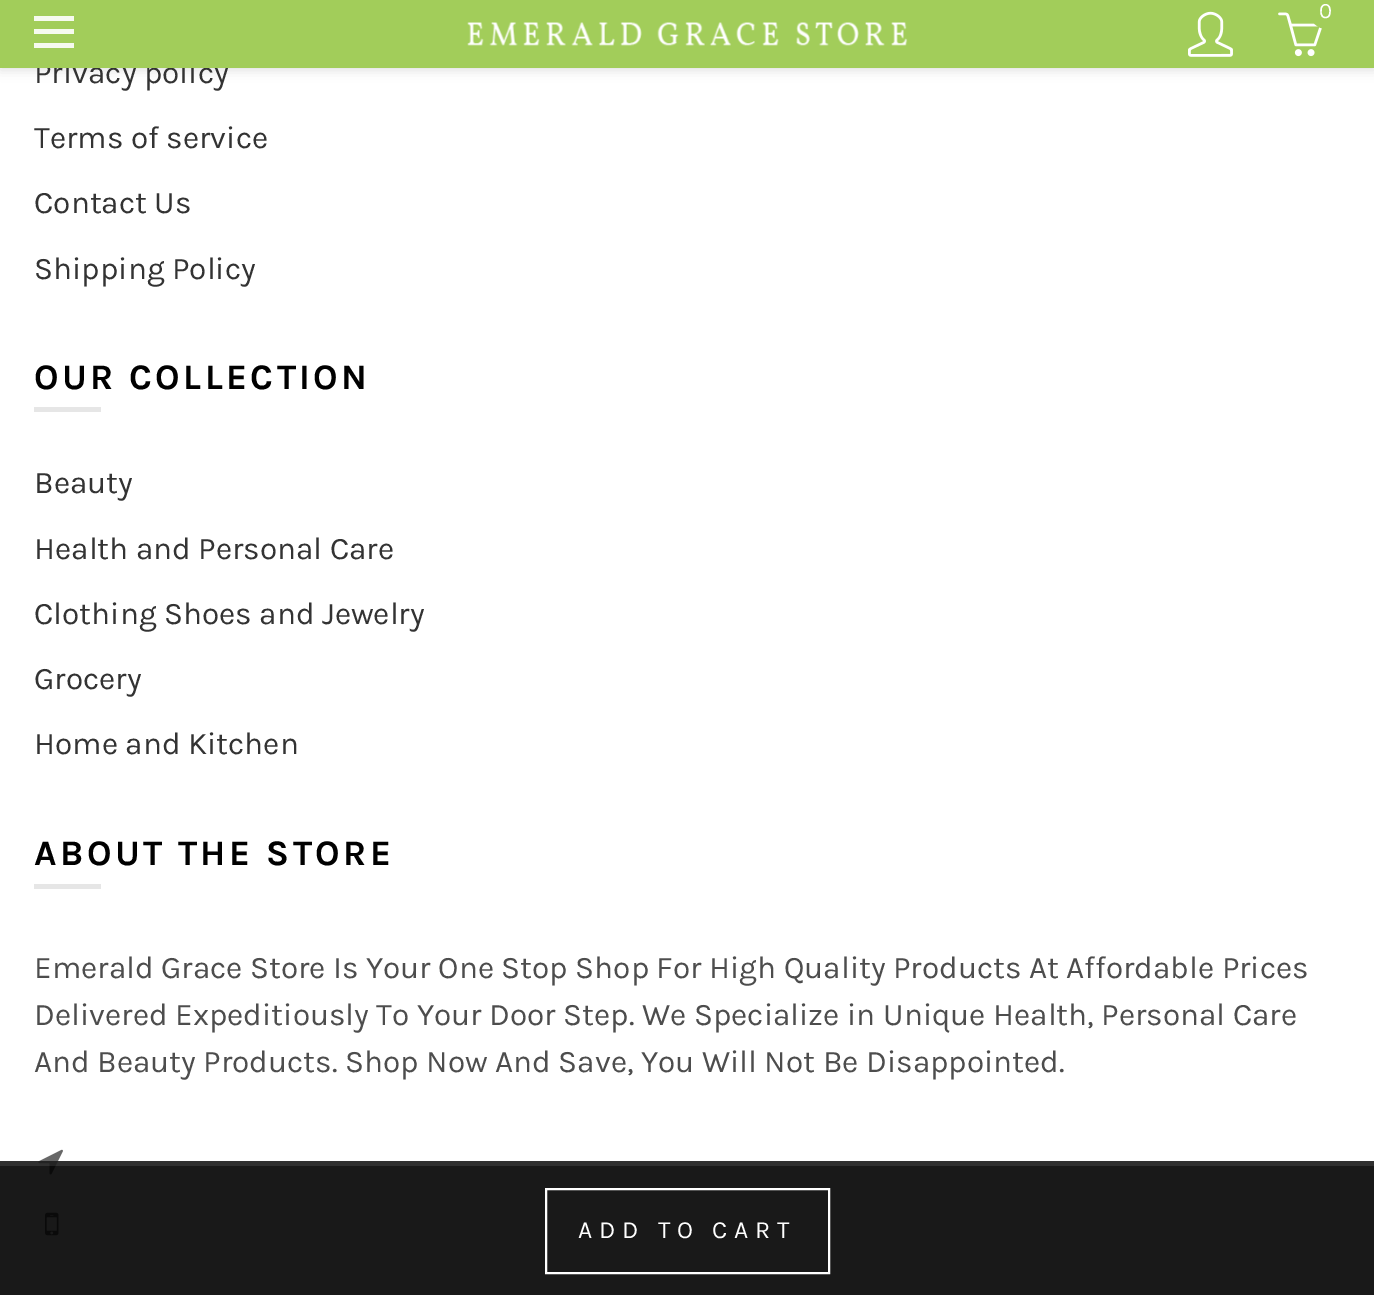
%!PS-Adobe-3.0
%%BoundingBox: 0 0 1374 1295
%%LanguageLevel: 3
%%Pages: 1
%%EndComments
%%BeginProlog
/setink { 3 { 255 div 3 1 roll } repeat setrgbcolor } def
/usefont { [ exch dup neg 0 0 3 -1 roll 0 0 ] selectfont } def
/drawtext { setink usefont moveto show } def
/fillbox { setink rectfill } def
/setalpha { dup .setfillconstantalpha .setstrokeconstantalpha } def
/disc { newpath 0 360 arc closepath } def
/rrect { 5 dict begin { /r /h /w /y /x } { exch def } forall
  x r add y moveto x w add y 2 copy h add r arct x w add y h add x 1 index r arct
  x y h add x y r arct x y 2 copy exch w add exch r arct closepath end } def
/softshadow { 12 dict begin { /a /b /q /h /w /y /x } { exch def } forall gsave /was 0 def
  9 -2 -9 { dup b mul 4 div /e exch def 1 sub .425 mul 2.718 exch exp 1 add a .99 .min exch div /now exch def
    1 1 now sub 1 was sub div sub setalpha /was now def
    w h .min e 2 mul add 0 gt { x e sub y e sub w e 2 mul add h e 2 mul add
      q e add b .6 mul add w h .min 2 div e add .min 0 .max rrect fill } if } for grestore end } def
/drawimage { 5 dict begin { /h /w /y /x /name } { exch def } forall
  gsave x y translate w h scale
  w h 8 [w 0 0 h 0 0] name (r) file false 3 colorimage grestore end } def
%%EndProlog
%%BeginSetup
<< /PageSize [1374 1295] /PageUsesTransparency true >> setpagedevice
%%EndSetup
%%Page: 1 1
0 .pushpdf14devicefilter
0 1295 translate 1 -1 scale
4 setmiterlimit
0 0 1374 1295 255 255 255 fillbox
190 190 190 setink
0 2 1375 68 0 5.5 0.5 softshadow
(Privacy policy) 34 83 /Karla-Regular 31.5 51 51 51 drawtext
0 0 1374 68 162 205 90 fillbox
(assets/img1.rgb) 1188 11 45 46 drawimage
(assets/img2.rgb) 1278 12 44 45 drawimage
1326.5 12.5 16.5 disc fill
(0) 1319 18 /Karla-Regular 22 255 255 255 drawtext
34 29 40 5 246 250 239 fillbox
34 16 40 5 246 250 239 fillbox
34 43 40 5 246 250 239 fillbox
(assets/img3.rgb) 467 22 441 24 drawimage
(Terms of service) 34 148 /Karla-Regular 31.5 51 51 51 drawtext
(Contact Us) 34 213 /Karla-Regular 31.5 51 51 51 drawtext
(Shipping Policy) 34 279 /Karla-Regular 31.5 51 51 51 drawtext
/Karla-Bold 36 usefont
0 0 0 setink
34 389 moveto 3.4 0 (OUR COLLECTION) ashow
34 407 67 5 230 230 230 fillbox
(Beauty) 34 493 /Karla-Regular 31.5 51 51 51 drawtext
(Health and Personal Care) 34 559 /Karla-Regular 31.5 51 51 51 drawtext
(Clothing Shoes and Jewelry) 34 624 /Karla-Regular 31.5 51 51 51 drawtext
(Grocery) 34 689 /Karla-Regular 31.5 51 51 51 drawtext
(Home and Kitchen) 34 754 /Karla-Regular 31.5 51 51 51 drawtext
/Karla-Bold 36 usefont
0 0 0 setink
34 865 moveto 3.4 0 (ABOUT THE STORE) ashow
34 884 67 5 230 230 230 fillbox
(Emerald Grace Store Is Your One Stop Shop For High Quality Products At Affordable Prices) 34 978 /Karla-Regular 31.5 77 77 77 drawtext
(Delivered Expeditiously To Your Door Step. We Specialize in Unique Health, Personal Care) 34 1025 /Karla-Regular 31.5 77 77 77 drawtext
(And Beauty Products. Shop Now And Save, You Will Not Be Disappointed.) 34 1072 /Karla-Regular 31.5 77 77 77 drawtext
(assets/img4.rgb) 38 1149 25 26 drawimage
(assets/img5.rgb) 45 1212 14 24 drawimage
0.9 setalpha
0 1161 1374 134 0 0 0 fillbox
0.1 setalpha
0 1161 1374 5 255 255 255 fillbox
1 setalpha
2 setlinewidth
546 1189 283 84 rectstroke
/Karla-Regular 24.75 usefont
578 1238 moveto 6.75 0 (ADD TO CART) ashow
.poppdf14devicefilter showpage
%%EOF
